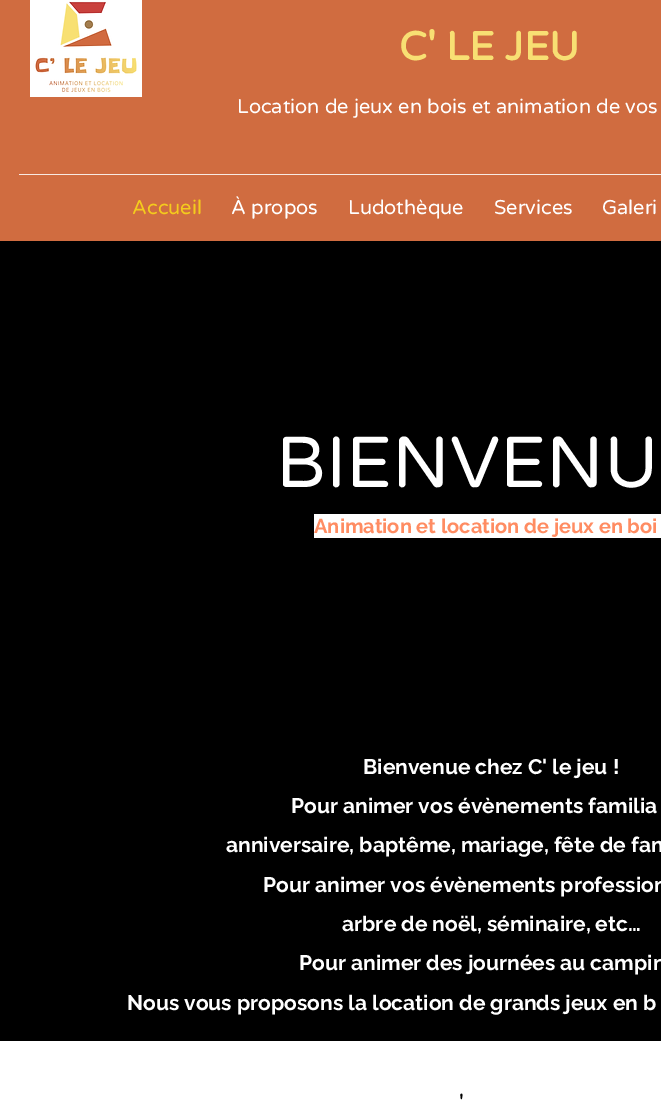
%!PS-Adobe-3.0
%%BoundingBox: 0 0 661 1105
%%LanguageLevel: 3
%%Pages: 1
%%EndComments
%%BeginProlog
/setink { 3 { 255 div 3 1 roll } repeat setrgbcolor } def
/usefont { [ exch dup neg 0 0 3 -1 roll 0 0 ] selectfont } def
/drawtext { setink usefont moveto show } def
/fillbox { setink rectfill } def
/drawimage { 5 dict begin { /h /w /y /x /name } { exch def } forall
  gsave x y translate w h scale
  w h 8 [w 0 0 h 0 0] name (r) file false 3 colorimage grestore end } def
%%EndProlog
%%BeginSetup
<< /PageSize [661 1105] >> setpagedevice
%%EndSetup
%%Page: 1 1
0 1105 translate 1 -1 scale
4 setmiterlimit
0 0 661 1105 0 0 0 fillbox
0 0 661 241 208 108 64 fillbox
(assets/img1.rgb) 30 0 112 97 drawimage
(C' LE JEU) 399 60 /VarelaRound-Bold 40 248 223 115 drawtext
(Location de jeux en bois et animation de vos) 237 113 /VarelaRound-Regular 20 255 255 255 drawtext
19 174 642 1 248 233 226 fillbox
(Accueil) 132 214 /VarelaRound-Regular 20 244 203 29 drawtext
(À propos) 231 214 /VarelaRound-Regular 20 255 255 255 drawtext
(Ludothèque) 348 214 /VarelaRound-Regular 20 255 255 255 drawtext
(Services) 494 214 /VarelaRound-Regular 20 255 255 255 drawtext
(Galeri) 602 214 /VarelaRound-Regular 20 255 255 255 drawtext
(BIENVENU) 276 487 /VarelaRound-Regular 72 255 255 255 drawtext
314 514 347 24 255 255 255 fillbox
(Animation et location de jeux en boi) 314 533 /Raleway-Bold 20 255 140 98 drawtext
(Bienvenue chez C' le jeu !) 363 774 /Raleway-Bold 21 255 255 255 drawtext
(Pour animer vos évènements familia) 291 813 /Raleway-Bold 21 255 255 255 drawtext
(anniversaire, baptême, mariage, fête de fam) 226 852 /Raleway-Bold 21 255 255 255 drawtext
(Pour animer vos évènements profession) 263 892 /Raleway-Bold 21 255 255 255 drawtext
(arbre de noël, séminaire, etc…) 342 931 /Raleway-Bold 21 255 255 255 drawtext
(Pour animer des journées au campin) 299 970 /Raleway-Bold 21 255 255 255 drawtext
(Nous vous proposons la location de grands jeux en b) 127 1010 /Raleway-Bold 21 255 255 255 drawtext
0 1041 661 64 255 255 255 fillbox
(') 459 1110 /VarelaRound-Regular 22 0 0 0 drawtext
showpage
%%EOF
